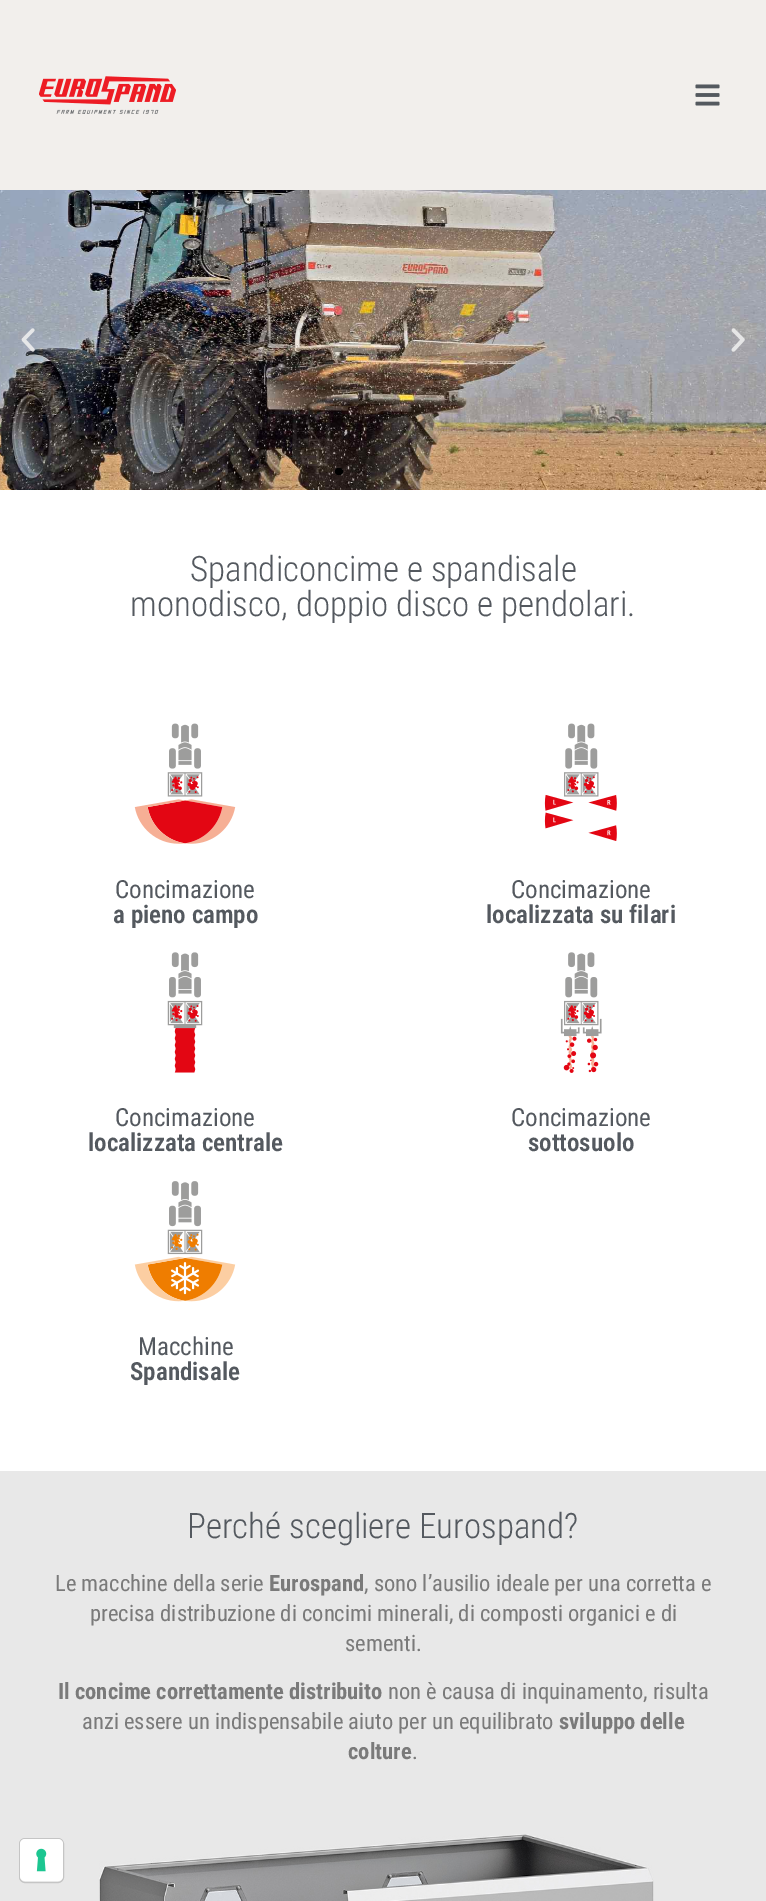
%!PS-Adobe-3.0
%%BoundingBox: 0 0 766 1901
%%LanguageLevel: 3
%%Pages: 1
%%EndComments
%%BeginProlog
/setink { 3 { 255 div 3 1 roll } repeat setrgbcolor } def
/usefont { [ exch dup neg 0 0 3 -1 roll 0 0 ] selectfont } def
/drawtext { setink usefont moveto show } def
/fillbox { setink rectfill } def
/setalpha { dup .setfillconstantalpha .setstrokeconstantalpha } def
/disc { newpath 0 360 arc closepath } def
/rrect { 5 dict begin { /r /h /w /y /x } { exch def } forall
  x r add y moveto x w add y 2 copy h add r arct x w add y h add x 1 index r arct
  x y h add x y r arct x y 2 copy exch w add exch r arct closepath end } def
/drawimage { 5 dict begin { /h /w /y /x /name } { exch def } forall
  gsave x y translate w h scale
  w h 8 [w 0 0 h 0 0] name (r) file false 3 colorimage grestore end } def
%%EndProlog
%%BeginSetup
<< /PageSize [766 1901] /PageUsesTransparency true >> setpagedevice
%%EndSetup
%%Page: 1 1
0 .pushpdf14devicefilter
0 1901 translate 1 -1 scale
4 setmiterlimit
0 0 766 1901 255 255 255 fillbox
0 0 766 190 242 239 236 fillbox
(assets/img1.rgb) 39 76 137 38 drawimage
(assets/img2.rgb) 695 84 25 22 drawimage
(assets/img3.rgb) 0 190 766 300 drawimage
(assets/img4.rgb) 21 328 14 24 drawimage
(assets/img5.rgb) 731 328 14 24 drawimage
0 0 0 setink
335 468 8 7 3.5 rrect fill
0.2 setalpha
361.5 471.5 3.5 disc fill
380 468 8 7 3.5 rrect fill
406.5 471.5 3.5 disc fill
425 468 8 7 3.5 rrect fill
1 setalpha
(Spandiconcime e spandisale) 190 581 /RobotoCondensed-Light 35 84 89 95 drawtext
(monodisco, doppio disco e pendolari.) 130 616 /RobotoCondensed-Light 35 84 89 95 drawtext
(assets/img6.rgb) 134 723 102 121 drawimage
(Concimazione) 115 898 /RobotoCondensed-Regular 25 84 89 95 drawtext
(a pieno campo) 113 923 /RobotoCondensed-SemiBold 25 84 89 95 drawtext
(assets/img7.rgb) 544 723 73 118 drawimage
(Concimazione) 511 898 /RobotoCondensed-Regular 25 84 89 95 drawtext
(localizzata su filari) 486 923 /RobotoCondensed-SemiBold 25 84 89 95 drawtext
(assets/img8.rgb) 167 952 36 121 drawimage
(Concimazione) 115 1126 /RobotoCondensed-Regular 25 84 89 95 drawtext
(localizzata centrale) 88 1151 /RobotoCondensed-SemiBold 25 84 89 95 drawtext
(assets/img9.rgb) 560 952 42 121 drawimage
(Concimazione) 511 1126 /RobotoCondensed-Regular 25 84 89 95 drawtext
(sottosuolo) 528 1151 /RobotoCondensed-SemiBold 25 84 89 95 drawtext
(assets/img10.rgb) 134 1181 102 121 drawimage
(Macchine) 138 1355 /RobotoCondensed-Regular 25 84 89 95 drawtext
(Spandisale) 130 1380 /RobotoCondensed-SemiBold 25 84 89 95 drawtext
0 1471 766 430 232 232 232 fillbox
(Perché scegliere Eurospand?) 187 1538 /RobotoCondensed-Light 35 84 89 95 drawtext
(Le macchine della serie) 55 1591 /RobotoCondensed-Regular 22.5 122 122 122 drawtext
(Eurospand) 269 1591 /RobotoCondensed-Bold 22.5 122 122 122 drawtext
(, sono l’ausilio ideale per una corretta e) 364 1591 /RobotoCondensed-Regular 22.5 122 122 122 drawtext
(precisa distribuzione di concimi minerali, di composti organici e di) 90 1621 /RobotoCondensed-Regular 22.5 122 122 122 drawtext
(sementi.) 345 1651 /RobotoCondensed-Regular 22.5 122 122 122 drawtext
(Il concime correttamente distribuito) 58 1699 /RobotoCondensed-Bold 22.5 122 122 122 drawtext
(non è causa di inquinamento, risulta) 388 1699 /RobotoCondensed-Regular 22.5 122 122 122 drawtext
(anzi essere un indispensabile aiuto per un equilibrato) 82 1729 /RobotoCondensed-Regular 22.5 122 122 122 drawtext
(sviluppo delle) 559 1729 /RobotoCondensed-Bold 22.5 122 122 122 drawtext
(colture) 348 1759 /RobotoCondensed-Bold 22.5 122 122 122 drawtext
(.) 412 1759 /RobotoCondensed-Regular 22.5 122 122 122 drawtext
(assets/img11.rgb) 99 1834 555 67 drawimage
197 197 197 setink
19.5 1838.5 44 44 5.5 rrect stroke
255 255 255 setink
20 1839 43 42 5 rrect fill
(assets/img12.rgb) 36 1848 11 24 drawimage
.poppdf14devicefilter showpage
%%EOF
